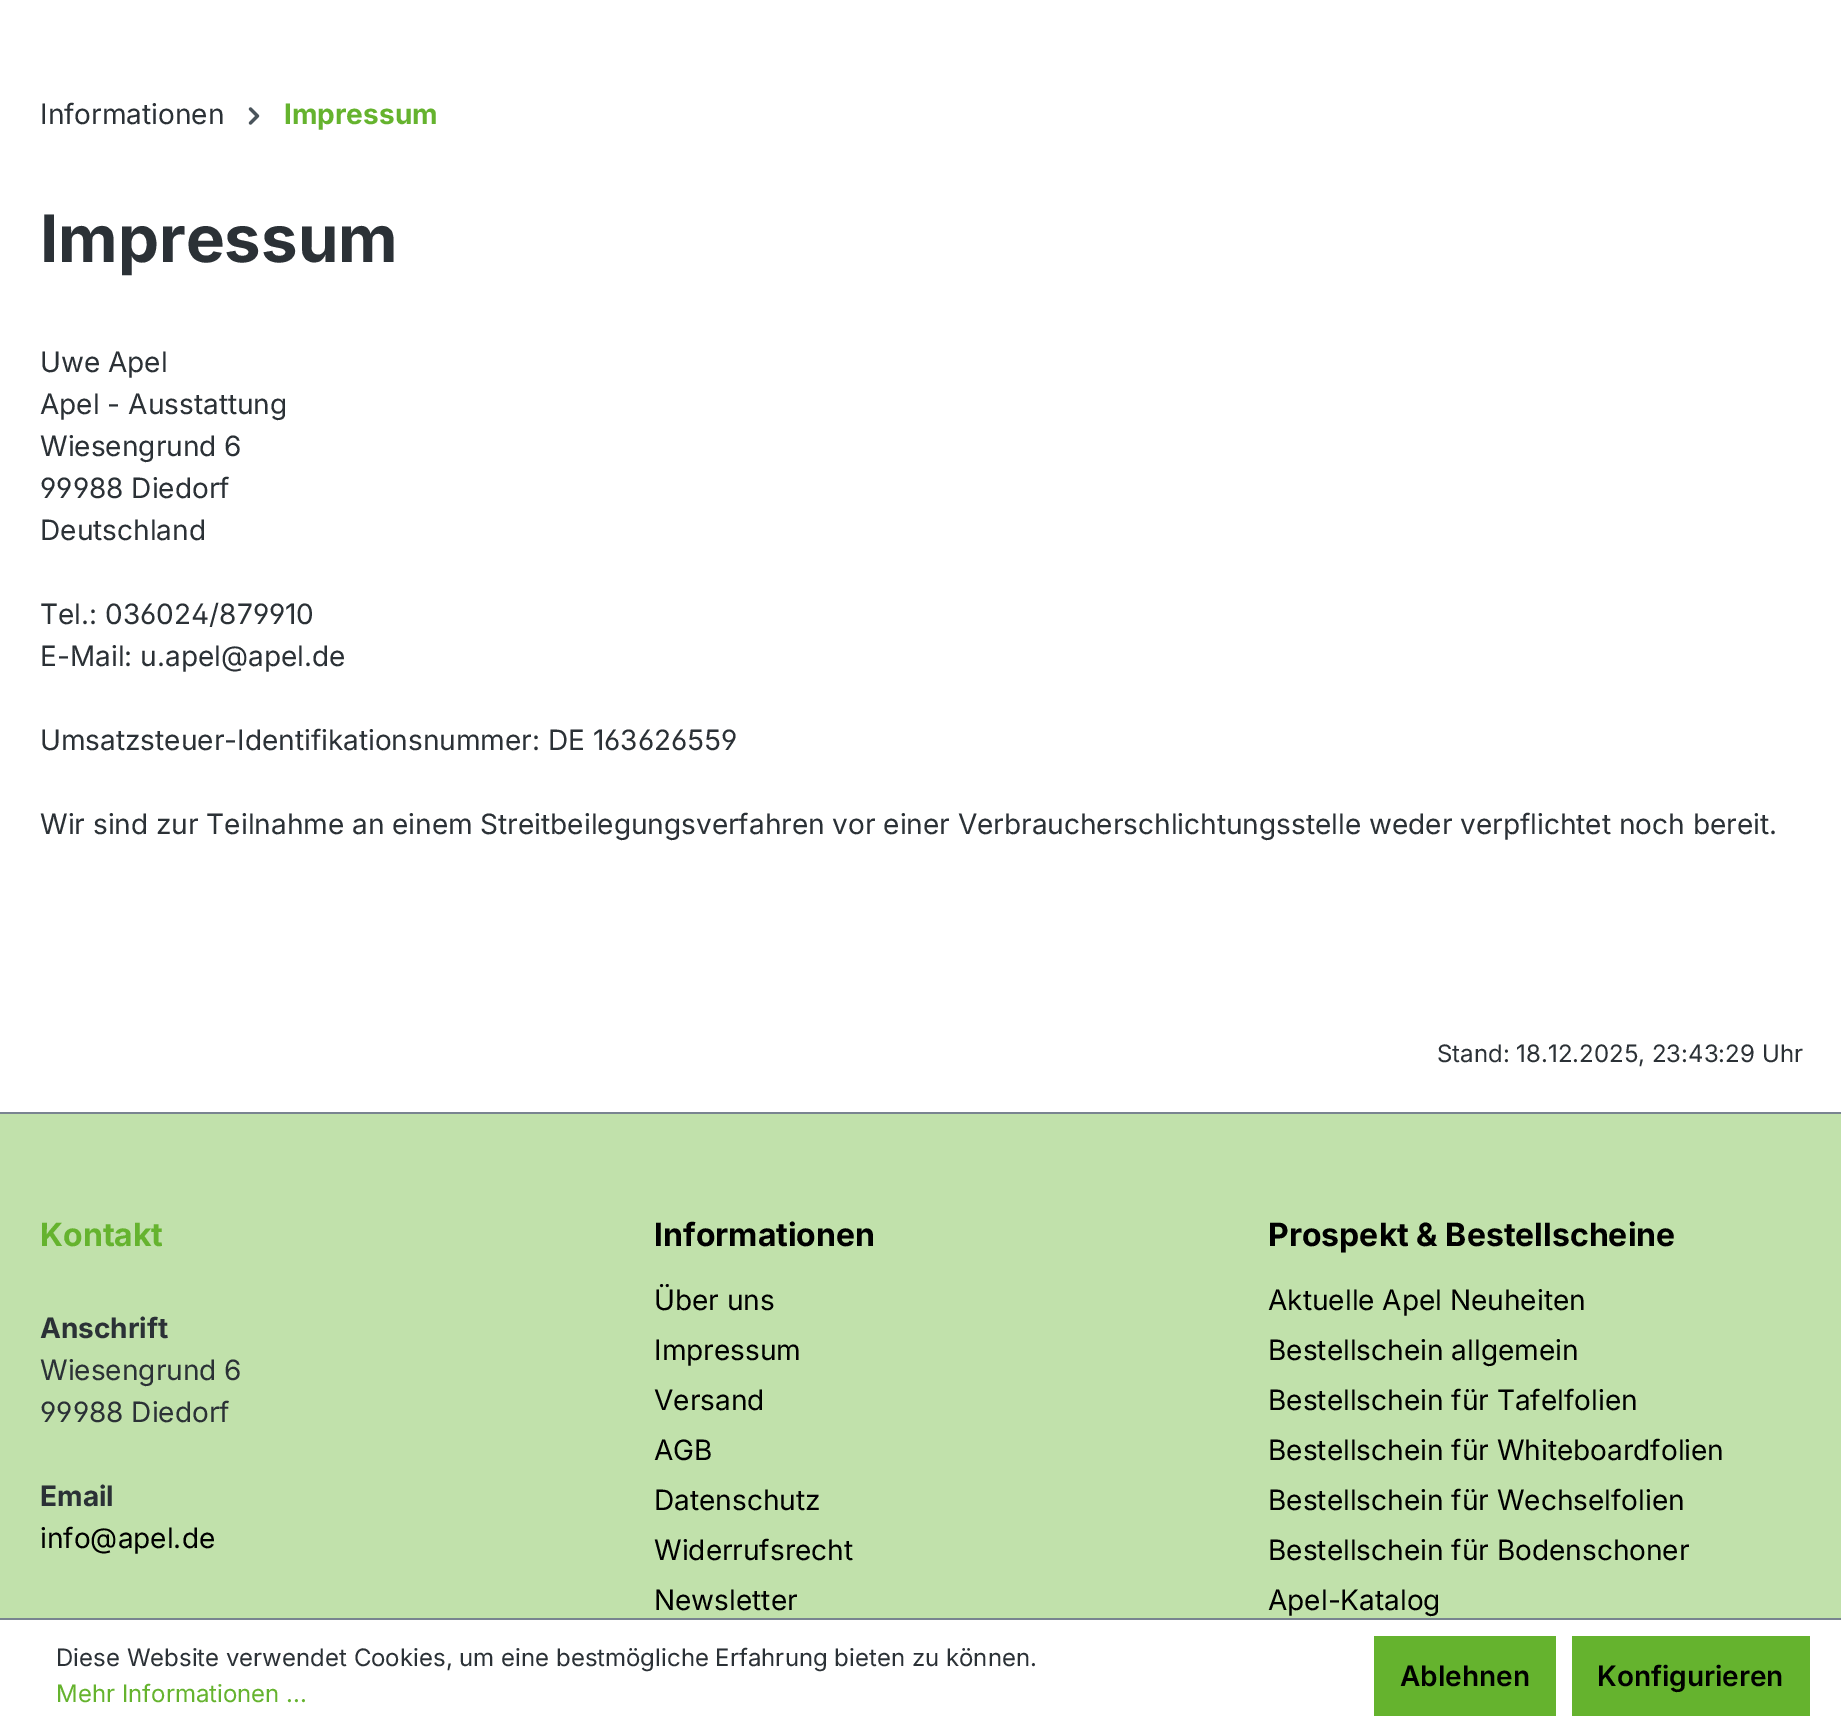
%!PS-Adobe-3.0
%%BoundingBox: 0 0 1841 1732
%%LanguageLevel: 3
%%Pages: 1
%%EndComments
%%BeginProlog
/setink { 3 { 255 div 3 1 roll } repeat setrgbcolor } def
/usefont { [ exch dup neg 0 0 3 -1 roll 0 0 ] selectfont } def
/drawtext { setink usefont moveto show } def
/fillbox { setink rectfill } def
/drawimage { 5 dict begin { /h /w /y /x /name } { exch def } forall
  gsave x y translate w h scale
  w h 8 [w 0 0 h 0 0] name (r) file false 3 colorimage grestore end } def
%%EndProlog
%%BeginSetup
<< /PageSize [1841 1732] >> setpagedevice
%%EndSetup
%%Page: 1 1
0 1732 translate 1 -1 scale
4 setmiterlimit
0 0 1841 1732 255 255 255 fillbox
(Informationen) 40 124 /Inter-Regular 28 43 49 54 drawtext
(assets/img1.rgb) 248 107 12 18 drawimage
(Impressum) 284 124 /Inter-Bold 28 101 179 46 drawtext
(Impressum) 40 262 /Inter-Bold 65.25 43 49 54 drawtext
(Uwe Apel) 40 372 /Inter-Regular 28 43 49 54 drawtext
(Apel - Ausstattung) 40 414 /Inter-Regular 28 43 49 54 drawtext
(Wiesengrund 6) 40 456 /Inter-Regular 28 43 49 54 drawtext
(99988 Diedorf) 40 498 /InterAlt-Regular 28 43 49 54 drawtext
(Deutschland) 40 540 /Inter-Regular 28 43 49 54 drawtext
(Tel.: 036024/879910) 40 624 /InterAlt-Regular 28 43 49 54 drawtext
(E-Mail: u.apel@apel.de) 40 666 /Inter-Regular 28 43 49 54 drawtext
(Umsatzsteuer-Identifikationsnummer: DE 163626559) 40 750 /InterAlt-Regular 28 43 49 54 drawtext
(Wir sind zur Teilnahme an einem Streitbeilegungsverfahren vor einer Verbraucherschlichtungsstelle weder verpflichtet noch bereit.) 40 834 /Inter-Regular 28 43 49 54 drawtext
(Stand: 18.12.2025, 23:43:29 Uhr) 1437 1062 /Inter-Regular 24 43 49 54 drawtext
0 1112 1841 2 121 132 144 fillbox
0 1114 1841 504 193 225 171 fillbox
(Kontakt) 40 1246 /Inter-Bold 32 101 179 46 drawtext
(Anschrift) 40 1338 /Inter-Bold 28 43 49 54 drawtext
(Wiesengrund 6) 40 1380 /Inter-Regular 28 43 49 54 drawtext
(99988 Diedorf) 40 1422 /InterAlt-Regular 28 43 49 54 drawtext
(Email) 40 1506 /Inter-Bold 28 43 49 54 drawtext
(info@apel.de) 40 1548 /Inter-Regular 28 0 0 0 drawtext
(Informationen) 654 1246 /Inter-Bold 32 0 0 0 drawtext
(Über uns) 654 1310 /Inter-Regular 28 0 0 0 drawtext
(Impressum) 654 1360 /Inter-Regular 28 0 0 0 drawtext
(Versand) 654 1410 /Inter-Regular 28 0 0 0 drawtext
(AGB) 654 1460 /Inter-Regular 28 0 0 0 drawtext
(Datenschutz) 654 1510 /Inter-Regular 28 0 0 0 drawtext
(Widerrufsrecht) 654 1560 /Inter-Regular 28 0 0 0 drawtext
(Newsletter) 654 1610 /Inter-Regular 28 0 0 0 drawtext
(Prospekt & Bestellscheine) 1268 1246 /Inter-Bold 32 0 0 0 drawtext
(Aktuelle Apel Neuheiten) 1268 1310 /Inter-Regular 28 0 0 0 drawtext
(Bestellschein allgemein) 1268 1360 /Inter-Regular 28 0 0 0 drawtext
(Bestellschein für Tafelfolien) 1268 1410 /Inter-Regular 28 0 0 0 drawtext
(Bestellschein für Whiteboardfolien) 1268 1460 /Inter-Regular 28 0 0 0 drawtext
(Bestellschein für Wechselfolien) 1268 1510 /Inter-Regular 28 0 0 0 drawtext
(Bestellschein für Bodenschoner) 1268 1560 /Inter-Regular 28 0 0 0 drawtext
(Apel-Katalog) 1268 1610 /Inter-Regular 28 0 0 0 drawtext
0 1618 1841 2 121 132 144 fillbox
(Diese Website verwendet Cookies, um eine bestmögliche Erfahrung bieten zu können.) 56 1666 /Inter-Regular 24 43 49 54 drawtext
(Mehr Informationen ...) 56 1702 /Inter-Regular 24 101 179 46 drawtext
1374 1636 182 80 101 179 46 fillbox
(Ablehnen) 1400 1686 /Inter-SemiBold 28 0 0 0 drawtext
1572 1636 238 80 101 179 46 fillbox
(Konfigurieren) 1597 1686 /Inter-SemiBold 28 0 0 0 drawtext
showpage
%%EOF
